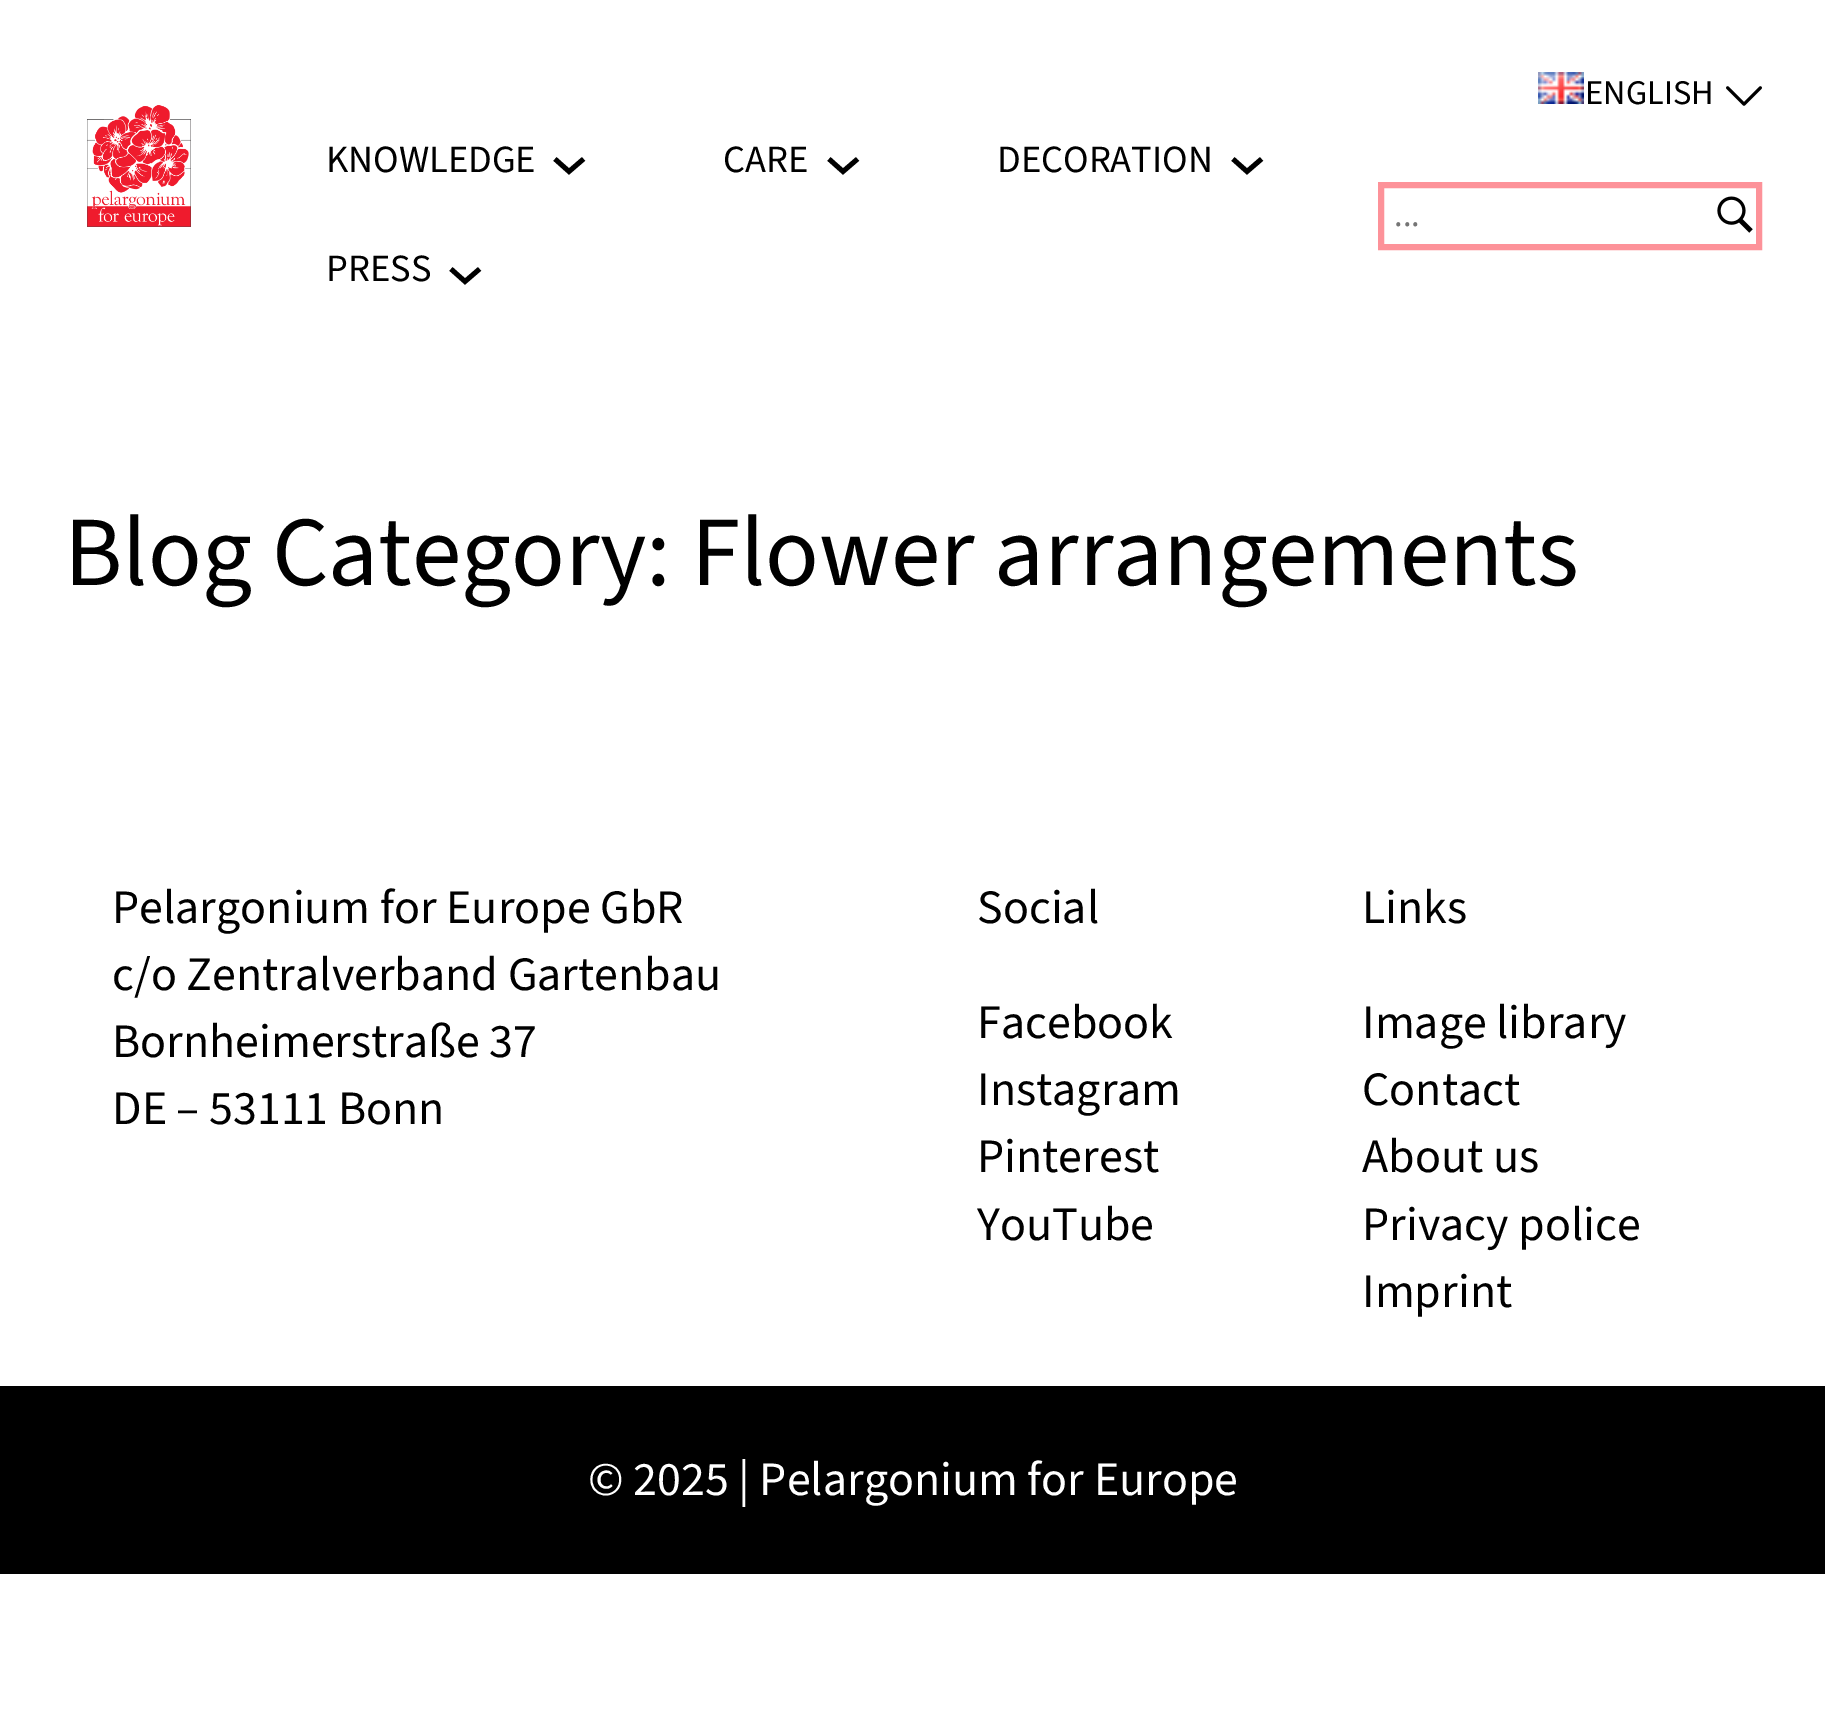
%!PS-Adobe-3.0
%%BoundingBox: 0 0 1825 1719
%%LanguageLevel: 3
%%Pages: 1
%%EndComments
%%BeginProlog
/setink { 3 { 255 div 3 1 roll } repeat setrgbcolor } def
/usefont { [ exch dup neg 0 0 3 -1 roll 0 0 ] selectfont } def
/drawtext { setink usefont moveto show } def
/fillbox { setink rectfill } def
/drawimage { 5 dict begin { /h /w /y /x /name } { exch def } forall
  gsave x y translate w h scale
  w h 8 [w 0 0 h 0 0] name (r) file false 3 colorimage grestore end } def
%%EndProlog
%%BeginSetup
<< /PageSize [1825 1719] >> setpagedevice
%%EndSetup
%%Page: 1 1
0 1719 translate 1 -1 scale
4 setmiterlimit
0 0 1825 1719 255 255 255 fillbox
(assets/img1.rgb) 1726 86 36 20 drawimage
(assets/img2.rgb) 1538 72 46 32 drawimage
(ENGLISH) 1585 104 /SourceSans3-Regular 34.5 0 0 0 drawtext
(assets/img3.rgb) 87 105 104 122 drawimage
(KNOWLEDGE) 326 172 /SourceSans3-Regular 38.5 0 0 0 drawtext
4.8 setlinewidth
555 159 moveto 569 171.5 lineto 583.5 159 lineto stroke
(CARE) 723 172 /SourceSans3-Regular 38.5 0 0 0 drawtext
829 159 moveto 843 171.5 lineto 857.5 159 lineto stroke
(DECORATION) 997 172 /SourceSans3-Regular 38.5 0 0 0 drawtext
1233 159 moveto 1247 171.5 lineto 1261.5 159 lineto stroke
(PRESS) 326 281 /SourceSans3-Regular 38.5 0 0 0 drawtext
451 269 moveto 465 281.5 lineto 479.5 269 lineto stroke
(assets/img4.rgb) 1717 196 36 37 drawimage
253 146 153 setink
6 setlinewidth
1381 185 378 62 rectstroke
(...) 1394 226 /SourceSans3-Regular 34.5 117 117 117 drawtext
(Blog Category: Flower arrangements) 64 585 /SourceSans3-Regular 99.4 0 0 0 drawtext
(Pelargonium for Europe GbR) 112 923 /SourceSans3-Regular 48 0 0 0 drawtext
(c/o Zentralverband Gartenbau) 112 990 /SourceSans3-Regular 48 0 0 0 drawtext
(Bornheimerstraße 37) 112 1057 /SourceSans3-Regular 48 0 0 0 drawtext
(DE – 53111 Bonn) 112 1124 /SourceSans3-Regular 48 0 0 0 drawtext
(Social) 977 923 /SourceSans3-Regular 48 0 0 0 drawtext
(Facebook) 977 1038 /SourceSans3-Regular 48 0 0 0 drawtext
(Instagram) 977 1105 /SourceSans3-Regular 48 0 0 0 drawtext
(Pinterest) 977 1172 /SourceSans3-Regular 48 0 0 0 drawtext
(YouTube) 977 1240 /SourceSans3-Regular 48 0 0 0 drawtext
(Links) 1362 923 /SourceSans3-Regular 48 0 0 0 drawtext
(Image library) 1362 1038 /SourceSans3-Regular 48 0 0 0 drawtext
(Contact) 1362 1105 /SourceSans3-Regular 48 0 0 0 drawtext
(About us) 1362 1172 /SourceSans3-Regular 48 0 0 0 drawtext
(Privacy police) 1362 1240 /SourceSans3-Regular 48 0 0 0 drawtext
(Imprint) 1362 1307 /SourceSans3-Regular 48 0 0 0 drawtext
0 1386 1825 188 0 0 0 fillbox
(© 2025 | Pelargonium for Europe) 588 1495 /SourceSans3-Regular 48 255 255 255 drawtext
showpage
%%EOF
